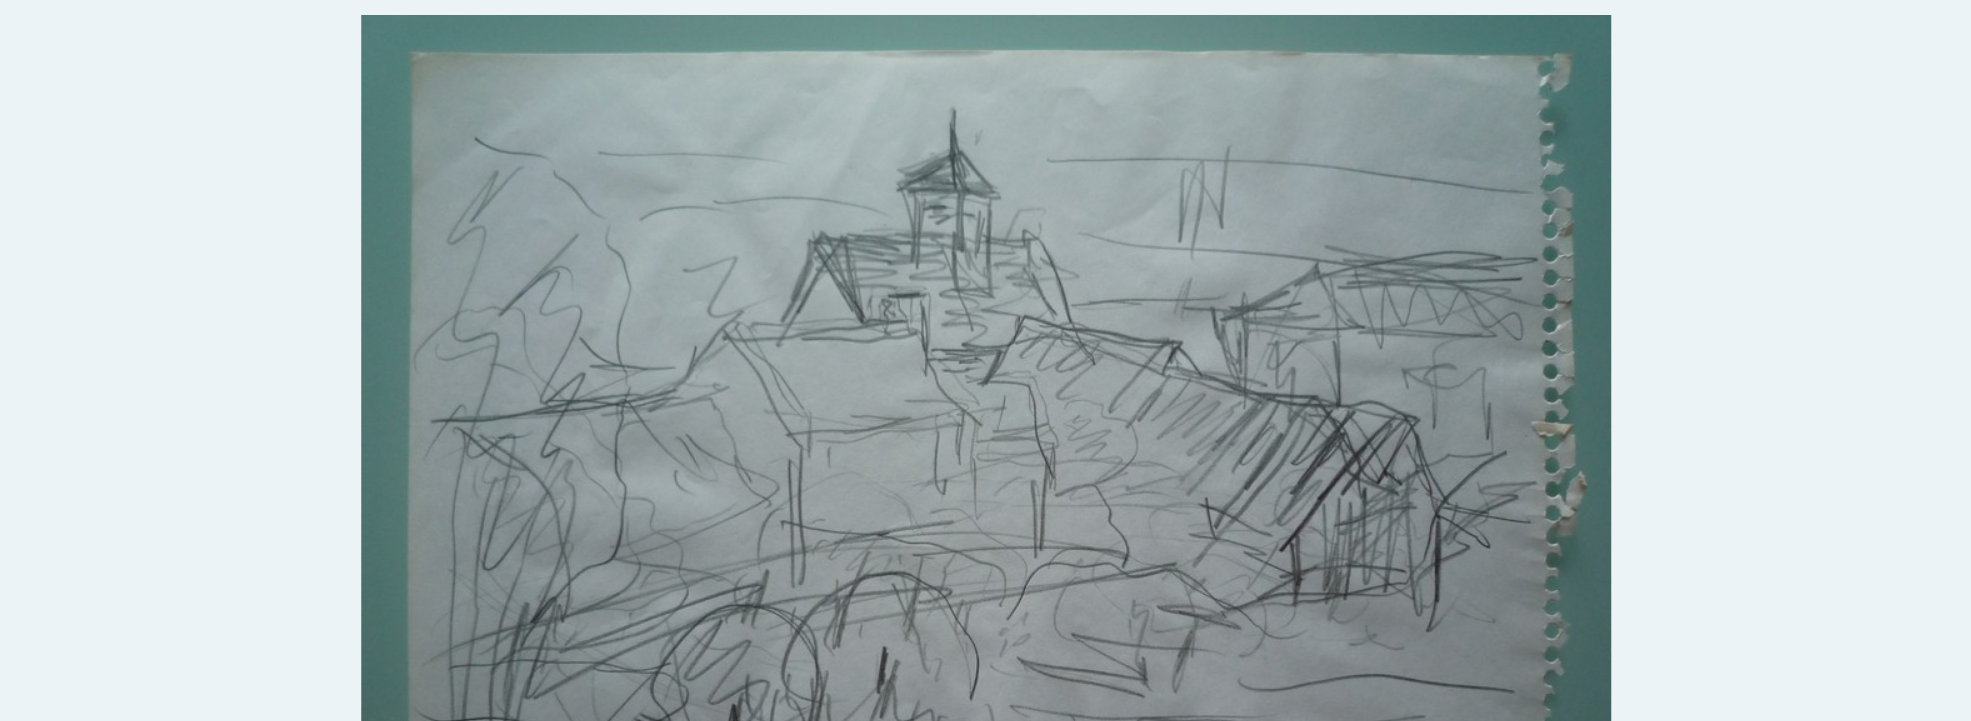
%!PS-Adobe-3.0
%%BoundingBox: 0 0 1971 721
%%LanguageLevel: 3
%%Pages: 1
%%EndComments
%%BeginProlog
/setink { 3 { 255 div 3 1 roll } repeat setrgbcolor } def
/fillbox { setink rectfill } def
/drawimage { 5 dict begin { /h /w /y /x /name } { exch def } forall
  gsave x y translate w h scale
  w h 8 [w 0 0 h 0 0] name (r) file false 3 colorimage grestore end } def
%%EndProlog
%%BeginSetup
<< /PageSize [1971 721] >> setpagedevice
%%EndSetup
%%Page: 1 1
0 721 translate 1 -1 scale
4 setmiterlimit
0 0 1971 721 235 243 246 fillbox
(assets/img1.rgb) 361 15 1251 706 drawimage
showpage
%%EOF
